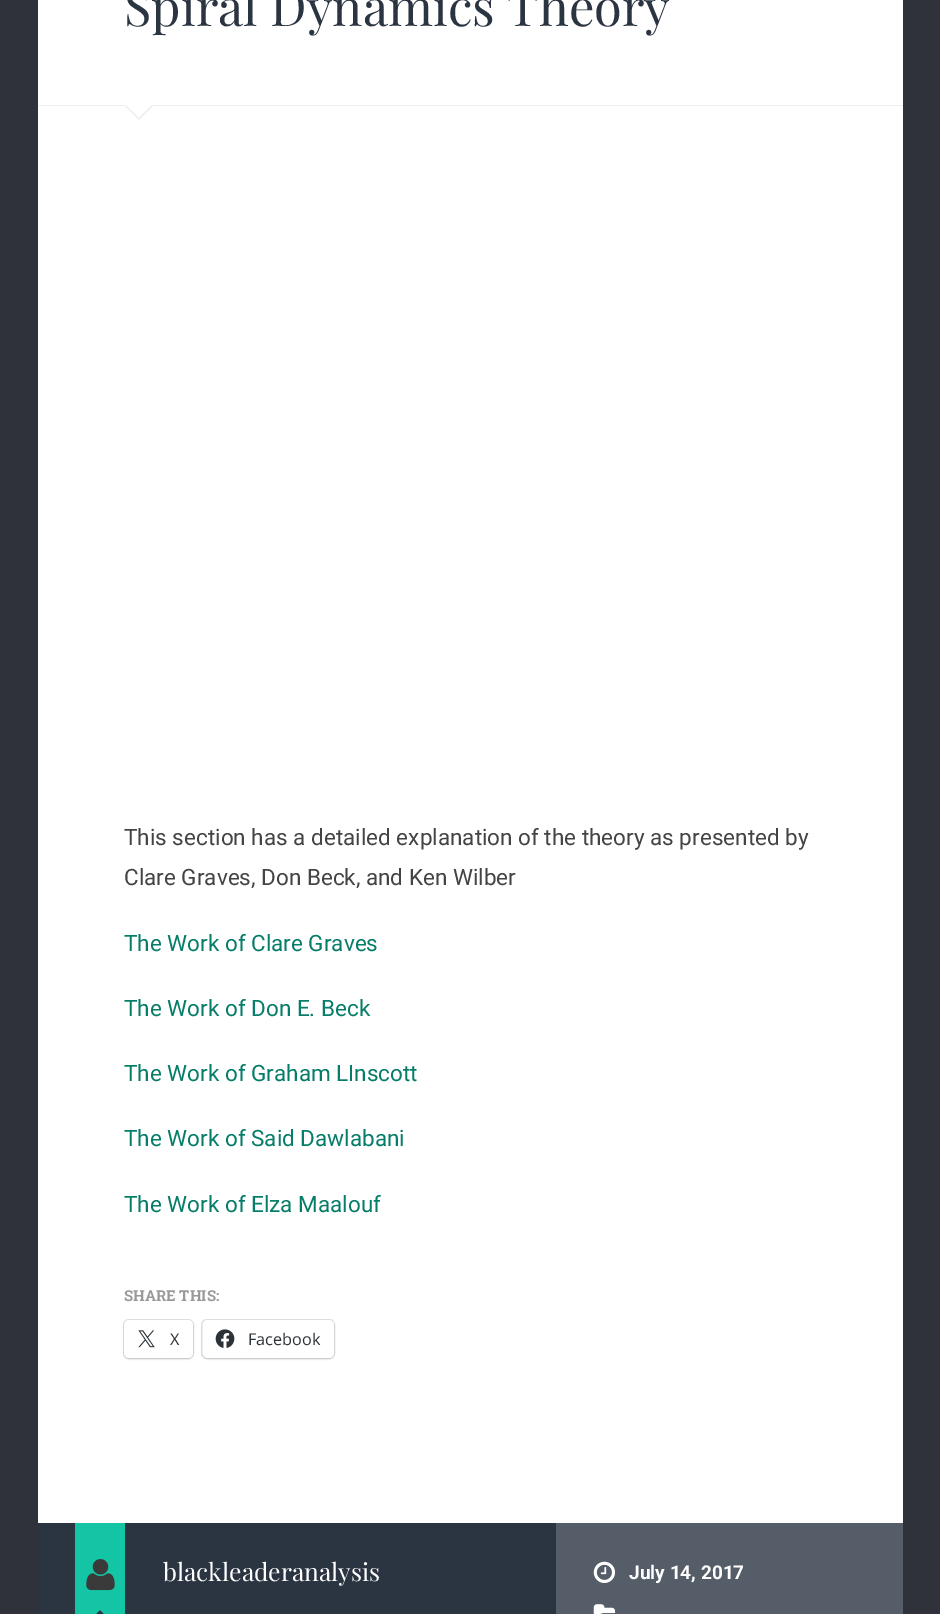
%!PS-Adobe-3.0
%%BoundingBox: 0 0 940 1614
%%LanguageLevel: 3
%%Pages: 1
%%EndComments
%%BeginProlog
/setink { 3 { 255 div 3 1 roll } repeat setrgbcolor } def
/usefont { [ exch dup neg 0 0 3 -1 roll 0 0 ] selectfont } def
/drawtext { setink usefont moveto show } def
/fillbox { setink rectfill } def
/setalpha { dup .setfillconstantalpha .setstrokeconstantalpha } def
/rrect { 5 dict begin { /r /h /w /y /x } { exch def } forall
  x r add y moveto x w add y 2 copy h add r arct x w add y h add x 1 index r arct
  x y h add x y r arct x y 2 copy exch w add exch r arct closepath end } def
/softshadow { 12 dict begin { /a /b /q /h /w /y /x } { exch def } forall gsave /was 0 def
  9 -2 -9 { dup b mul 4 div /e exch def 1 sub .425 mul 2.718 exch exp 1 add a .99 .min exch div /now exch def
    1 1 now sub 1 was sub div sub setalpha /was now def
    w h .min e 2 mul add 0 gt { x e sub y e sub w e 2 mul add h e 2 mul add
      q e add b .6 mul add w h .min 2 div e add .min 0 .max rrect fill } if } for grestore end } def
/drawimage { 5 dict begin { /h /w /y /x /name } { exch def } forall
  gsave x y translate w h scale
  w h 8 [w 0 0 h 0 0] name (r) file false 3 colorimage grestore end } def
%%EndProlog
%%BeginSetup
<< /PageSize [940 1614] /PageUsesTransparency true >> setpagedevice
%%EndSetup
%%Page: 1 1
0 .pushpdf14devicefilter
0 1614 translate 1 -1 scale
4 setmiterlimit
0 0 940 1614 48 50 59 fillbox
38 0 865 1523 255 255 255 fillbox
38 105 865 1 238 238 238 fillbox
(Spiral Dynamics Theory) 124 26 /PlayfairDisplay-Regular 50.6 43 53 66 drawtext
238 238 238 setink
124 105 moveto 154 105 lineto 139 120 lineto closepath fill
255 255 255 setink
125 104 moveto 152.5 104 lineto 139 117.5 lineto closepath fill
(This section has a detailed explanation of the theory as presented by) 124 845 /Roboto-Regular 22.5 68 68 68 drawtext
(Clare Graves, Don Beck, and Ken Wilber) 124 885 /Roboto-Regular 22.5 68 68 68 drawtext
(The Work of Clare Graves) 124 951 /Roboto-Regular 22.5 6 125 104 drawtext
(The Work of Don E. Beck) 124 1016 /Roboto-Regular 22.5 6 125 104 drawtext
(The Work of Graham LInscott) 124 1081 /Roboto-Regular 22.5 6 125 104 drawtext
(The Work of Said Dawlabani) 124 1146 /Roboto-Regular 22.5 6 125 104 drawtext
(The Work of Elza Maalouf) 124 1212 /Roboto-Regular 22.5 6 125 104 drawtext
(SHARE THIS:) 124 1301 /RobotoSlab-Bold 15 153 153 153 drawtext
224 224 224 setink
123.5 1319.5 70 39 5.5 rrect stroke
0 0 0 setink
124 1321 69 38 5 1 0.12 softshadow
255 255 255 setink
124 1320 69 38 5 rrect fill
(assets/img1.rgb) 138 1330 17 18 drawimage
(X) 170 1345 /OpenSans-Regular 16.25 44 51 56 drawtext
224 224 224 setink
201.5 1319.5 133 39 5.5 rrect stroke
0 0 0 setink
203 1321 131 38 5 1 0.12 softshadow
255 255 255 setink
203 1320 131 38 5 rrect fill
(assets/img2.rgb) 215 1329 20 19 drawimage
(Facebook) 248 1345 /OpenSans-Regular 16.25 44 51 56 drawtext
38 1523 518 91 43 53 66 fillbox
19 196 165 setink
125 1585 moveto 125 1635 lineto 100 1610 lineto closepath 75 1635 moveto 75 1585 lineto 100 1610 lineto closepath fill
75 1523 50 87 19 196 165 fillbox
(assets/img3.rgb) 86 1559 29 32 drawimage
(blackleaderanalysis) 163 1581 /PlayfairDisplay-Regular 24.75 255 255 255 drawtext
556 1523 347 91 85 93 104 fillbox
(assets/img4.rgb) 593 1561 23 22 drawimage
(July 14, 2017) 629 1579 /Roboto-Bold 19 255 255 255 drawtext
(assets/img5.rgb) 593 1604 23 10 drawimage
.poppdf14devicefilter showpage
%%EOF
